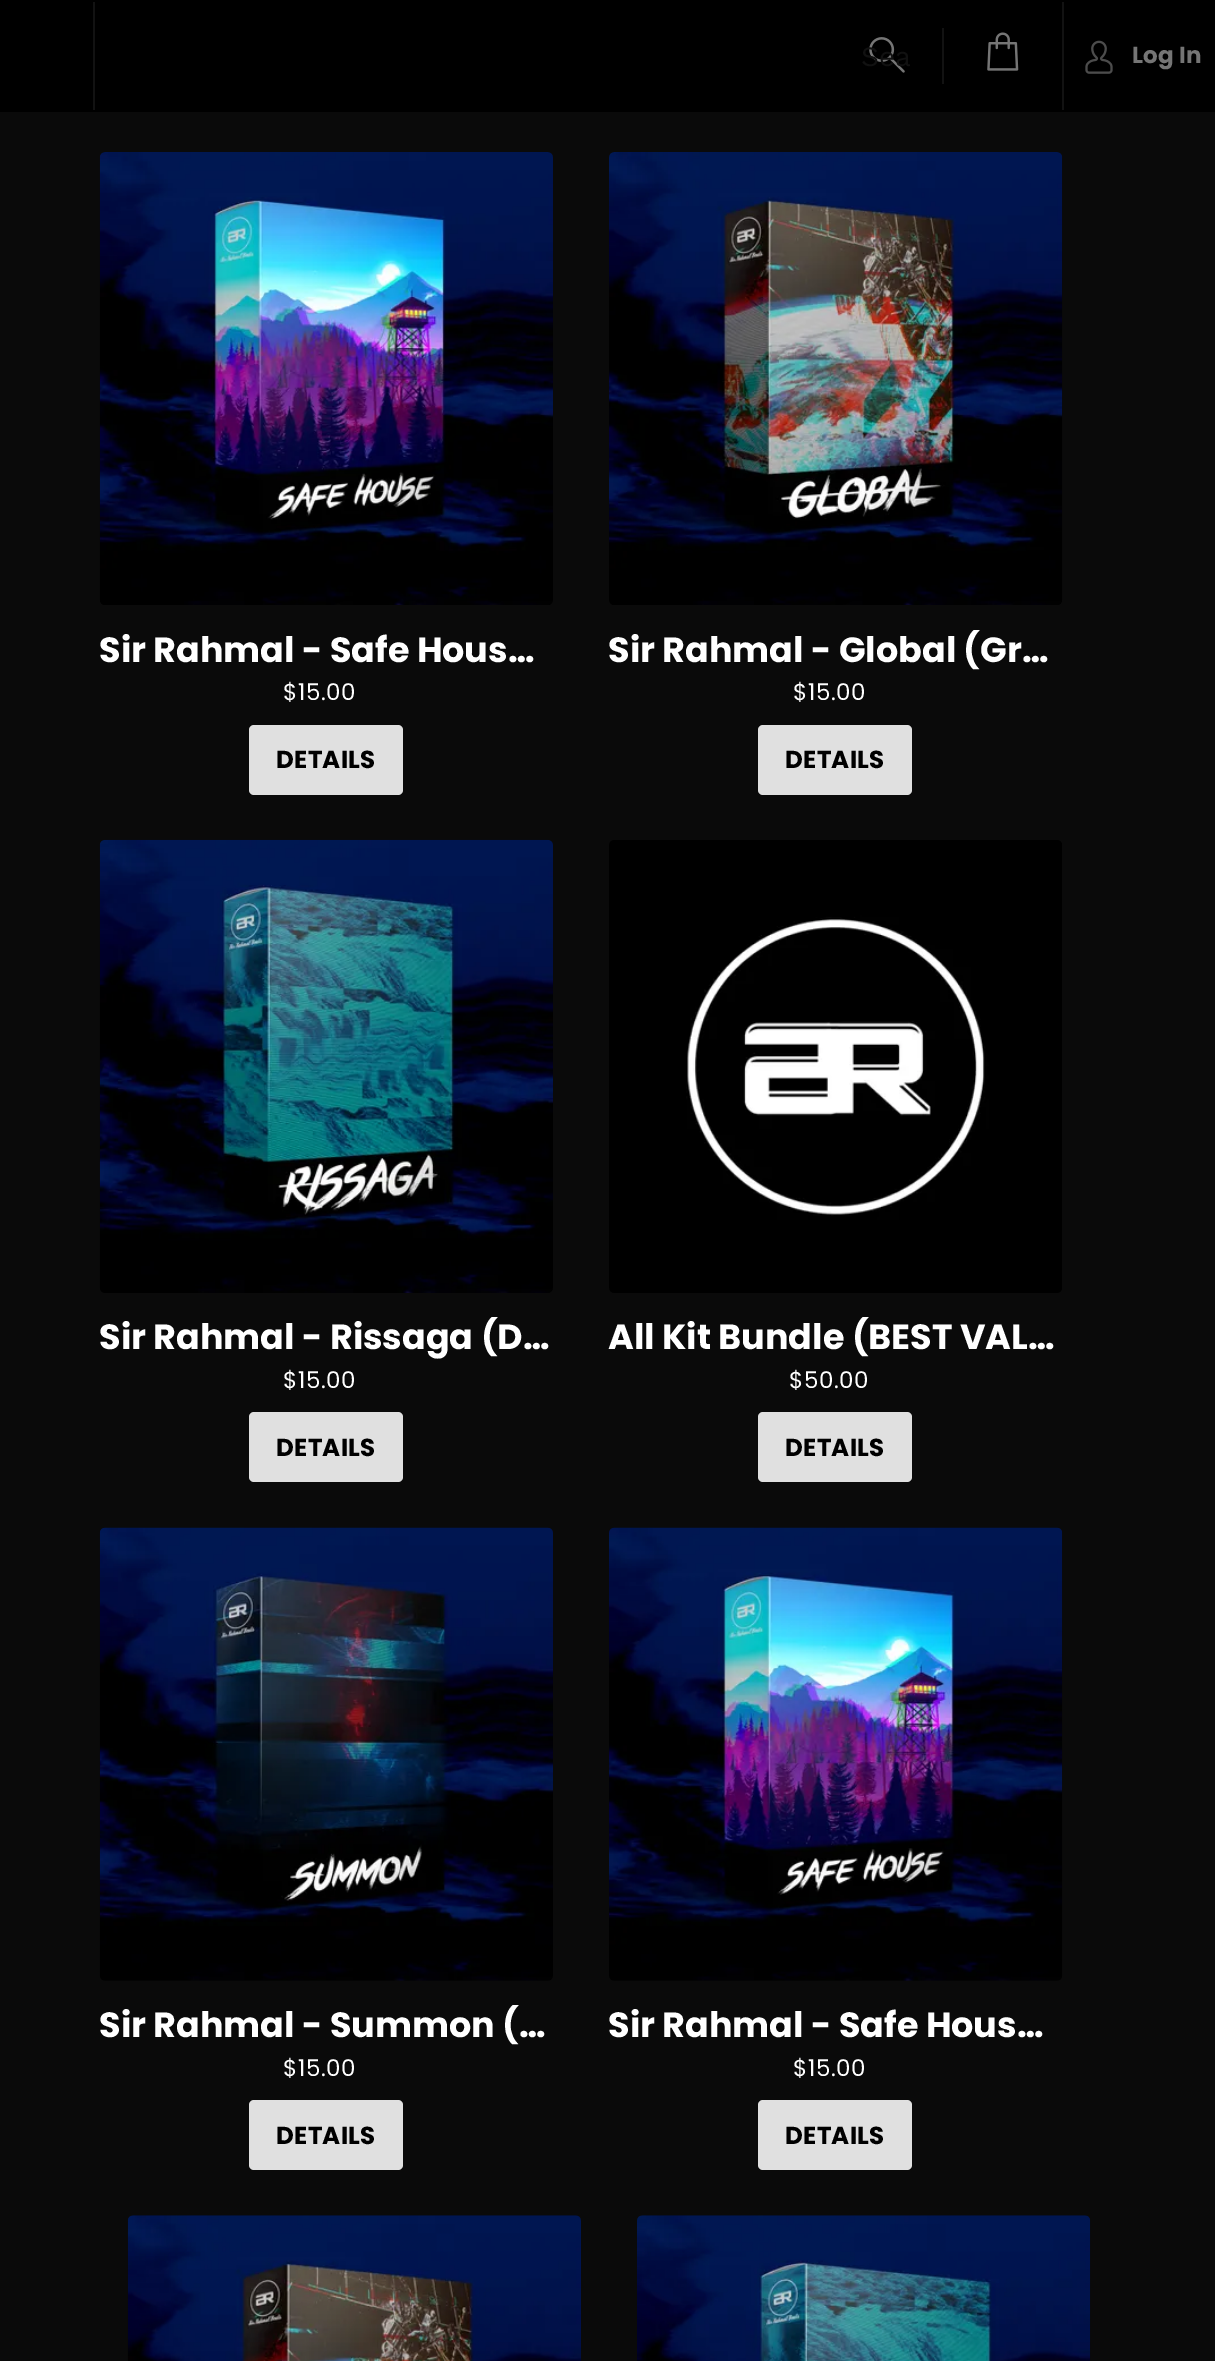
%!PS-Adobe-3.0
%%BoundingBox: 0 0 1215 2361
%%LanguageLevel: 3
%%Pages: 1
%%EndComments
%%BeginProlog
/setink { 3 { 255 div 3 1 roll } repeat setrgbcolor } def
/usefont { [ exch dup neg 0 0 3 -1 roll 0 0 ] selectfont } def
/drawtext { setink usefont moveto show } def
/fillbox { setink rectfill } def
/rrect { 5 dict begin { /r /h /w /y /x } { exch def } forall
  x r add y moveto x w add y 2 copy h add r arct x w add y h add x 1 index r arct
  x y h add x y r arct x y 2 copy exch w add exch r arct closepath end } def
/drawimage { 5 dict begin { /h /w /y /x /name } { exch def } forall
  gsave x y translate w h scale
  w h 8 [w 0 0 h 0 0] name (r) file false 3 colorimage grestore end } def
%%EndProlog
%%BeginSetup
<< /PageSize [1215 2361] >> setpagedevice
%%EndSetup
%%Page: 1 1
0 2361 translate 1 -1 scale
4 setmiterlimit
0 0 1215 2361 10 10 10 fillbox
0 0 1215 112 0 0 0 fillbox
93 2 2 108 18 18 18 fillbox
(assets/img1.rgb) 869 37 36 36 drawimage
(Sea) 861 66 /WorkSans-Regular 28 17 17 17 drawtext
942 28 2 56 18 18 18 fillbox
(assets/img2.rgb) 987 32 32 39 drawimage
1062 2 2 108 18 18 18 fillbox
(assets/img3.rgb) 1085 40 28 34 drawimage
/Poppins-Bold 23 usefont
117 117 117 setink
1132 63 moveto 0.25 0 (Log In) ashow
(assets/img4.rgb) 99 152 454 453 drawimage
(Sir Rahmal - Safe Hous…) 99 662 /Poppins-Bold 35 255 255 255 drawtext
/Poppins-Regular 23 usefont
283 700 moveto 0.5 0 ($15.00) ashow
224 224 224 setink
249 725 154 70 5 rrect fill
/Poppins-Bold 24.5 usefont
0 0 0 setink
276 768 moveto 0.25 0 (DETAILS) ashow
(assets/img5.rgb) 609 152 454 453 drawimage
(Sir Rahmal - Global \(Gr…) 608 662 /Poppins-Bold 35 255 255 255 drawtext
/Poppins-Regular 23 usefont
793 700 moveto 0.5 0 ($15.00) ashow
224 224 224 setink
758 725 154 70 5 rrect fill
/Poppins-Bold 24.5 usefont
0 0 0 setink
785 768 moveto 0.25 0 (DETAILS) ashow
(assets/img6.rgb) 99 839 454 454 drawimage
(Sir Rahmal - Rissaga \(D…) 99 1349 /Poppins-Bold 35 255 255 255 drawtext
/Poppins-Regular 23 usefont
283 1388 moveto 0.5 0 ($15.00) ashow
224 224 224 setink
249 1412 154 70 5 rrect fill
/Poppins-Bold 24.5 usefont
0 0 0 setink
276 1456 moveto 0.25 0 (DETAILS) ashow
(assets/img7.rgb) 609 840 453 453 drawimage
(All Kit Bundle \(BEST VAL…) 608 1349 /Poppins-Bold 35 255 255 255 drawtext
/Poppins-Regular 23 usefont
789 1388 moveto 0.5 0 ($50.00) ashow
224 224 224 setink
758 1412 154 70 5 rrect fill
/Poppins-Bold 24.5 usefont
0 0 0 setink
785 1456 moveto 0.25 0 (DETAILS) ashow
(assets/img8.rgb) 99 1527 454 454 drawimage
(Sir Rahmal - Summon \(…) 99 2037 /Poppins-Bold 35 255 255 255 drawtext
/Poppins-Regular 23 usefont
283 2076 moveto 0.5 0 ($15.00) ashow
224 224 224 setink
249 2100 154 70 5 rrect fill
/Poppins-Bold 24.5 usefont
0 0 0 setink
276 2144 moveto 0.25 0 (DETAILS) ashow
(assets/img9.rgb) 609 1527 454 454 drawimage
(Sir Rahmal - Safe Hous…) 608 2037 /Poppins-Bold 35 255 255 255 drawtext
/Poppins-Regular 23 usefont
793 2076 moveto 0.5 0 ($15.00) ashow
224 224 224 setink
758 2100 154 70 5 rrect fill
/Poppins-Bold 24.5 usefont
0 0 0 setink
785 2144 moveto 0.25 0 (DETAILS) ashow
(assets/img10.rgb) 127 2215 454 146 drawimage
(assets/img11.rgb) 637 2215 454 146 drawimage
showpage
%%EOF
